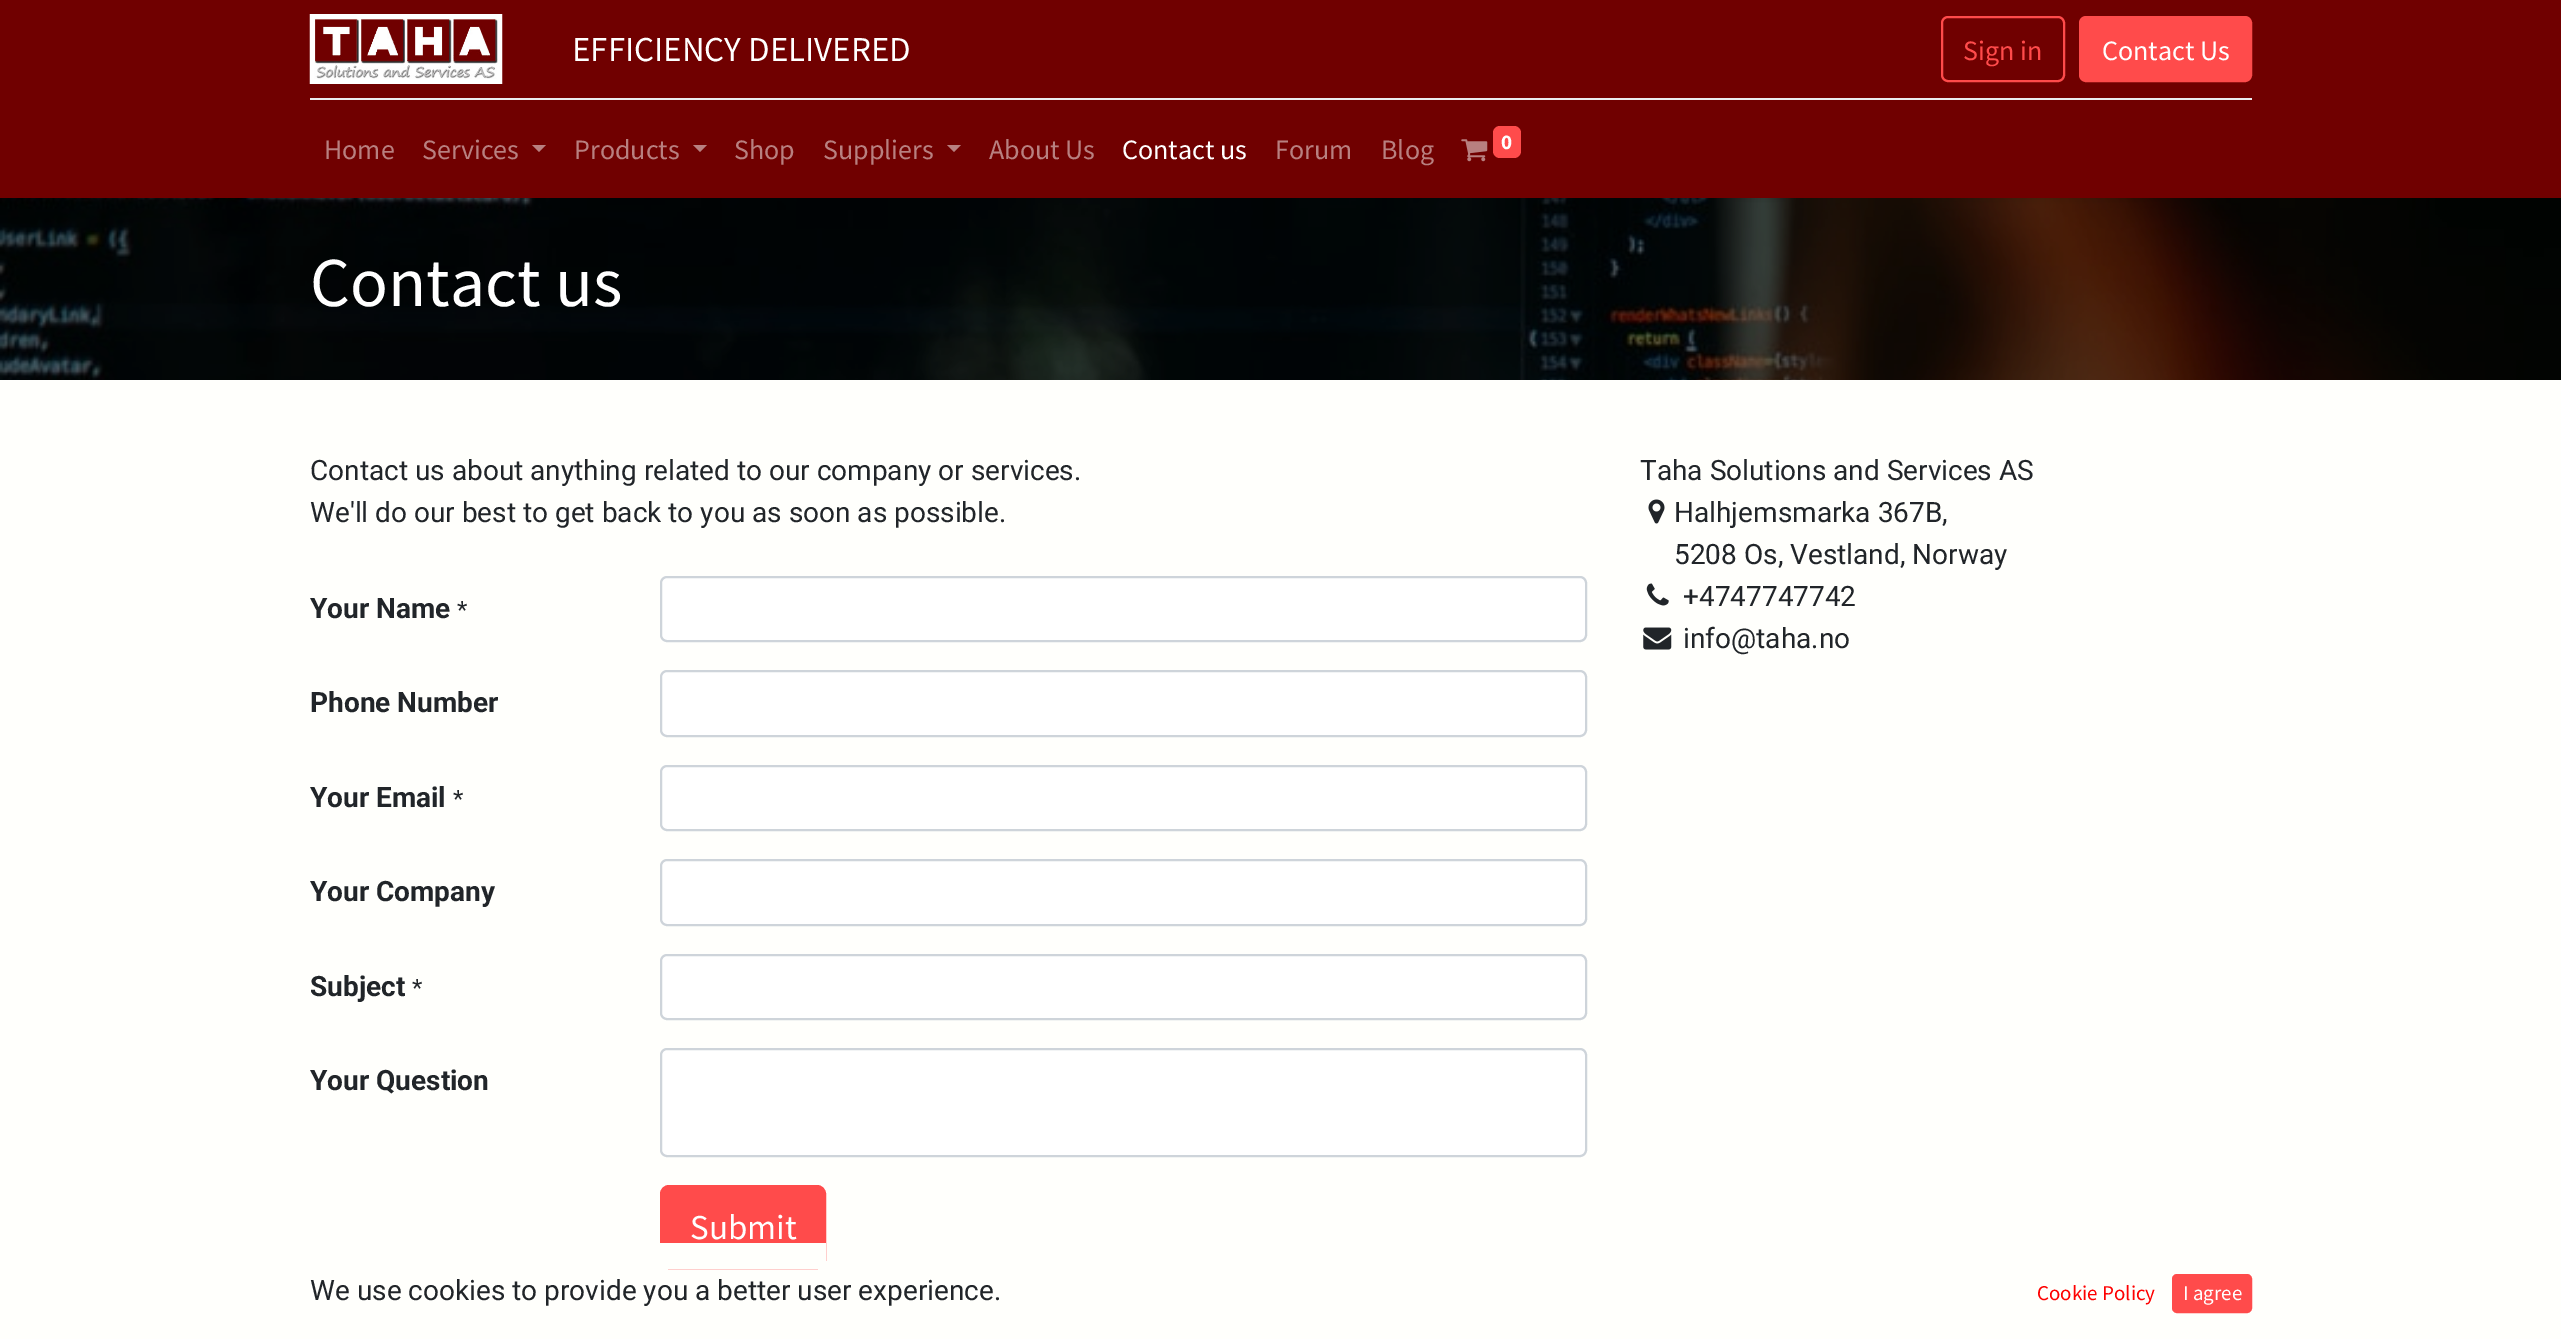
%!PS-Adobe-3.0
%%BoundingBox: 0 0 2561 1339
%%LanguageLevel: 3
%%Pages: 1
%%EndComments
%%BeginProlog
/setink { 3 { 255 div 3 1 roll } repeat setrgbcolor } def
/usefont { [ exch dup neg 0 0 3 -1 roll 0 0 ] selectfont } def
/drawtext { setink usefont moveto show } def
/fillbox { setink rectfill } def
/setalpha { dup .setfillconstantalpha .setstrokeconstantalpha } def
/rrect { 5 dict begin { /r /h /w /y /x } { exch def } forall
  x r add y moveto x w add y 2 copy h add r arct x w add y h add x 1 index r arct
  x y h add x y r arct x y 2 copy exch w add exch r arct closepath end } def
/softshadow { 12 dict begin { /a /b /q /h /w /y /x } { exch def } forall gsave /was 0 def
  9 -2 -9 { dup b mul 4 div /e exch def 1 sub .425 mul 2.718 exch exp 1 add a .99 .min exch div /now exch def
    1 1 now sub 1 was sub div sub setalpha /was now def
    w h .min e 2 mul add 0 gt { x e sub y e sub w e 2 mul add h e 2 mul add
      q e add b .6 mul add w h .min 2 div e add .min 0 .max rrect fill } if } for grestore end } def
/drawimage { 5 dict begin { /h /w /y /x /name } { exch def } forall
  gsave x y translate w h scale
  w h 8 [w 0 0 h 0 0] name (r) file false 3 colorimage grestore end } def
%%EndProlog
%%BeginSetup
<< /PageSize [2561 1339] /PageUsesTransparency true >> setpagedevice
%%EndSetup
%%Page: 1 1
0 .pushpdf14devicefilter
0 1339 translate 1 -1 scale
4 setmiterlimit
0 0 2561 1339 255 255 252 fillbox
(assets/img3.rgb) 0 198 2561 182 drawimage
0 0 0 setink
0 4 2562 197 0 3.5 0.07 softshadow
0 0 2561 198 112 0 0 fillbox
(assets/img1.rgb) 309 14 194 70 drawimage
(EFFICIENCY DELIVERED) 572 61 /SourceSansPro-Regular 35 255 255 255 drawtext
255 75 75 setink
2 setlinewidth
1942 17 122 64 6 rrect stroke
(Sign in) 1963 60 /SourceSansPro-Regular 28 255 75 75 drawtext
2080 17 171 64 6 rrect gsave fill grestore
stroke
(Contact Us) 2102 60 /SourceSansPro-Regular 28 255 255 255 drawtext
310 98 1942 2 233 236 239 fillbox
(Home) 324 159 /SourceSansPro-Regular 28 184 128 128 drawtext
(Services) 422 159 /SourceSansPro-Regular 28 184 128 128 drawtext
532 145 moveto 546 145 lineto 539 152 lineto closepath fill
(Products) 574 159 /SourceSansPro-Regular 28 184 128 128 drawtext
693 145 moveto 707 145 lineto 700 152 lineto closepath fill
(Shop) 734 159 /SourceSansPro-Regular 28 184 128 128 drawtext
(Suppliers) 823 159 /SourceSansPro-Regular 28 184 128 128 drawtext
947 145 moveto 961 145 lineto 954 152 lineto closepath fill
(About Us) 989 159 /SourceSansPro-Regular 28 184 128 128 drawtext
(Contact us) 1122 159 /SourceSansPro-Regular 28 255 255 255 drawtext
(Forum) 1275 159 /SourceSansPro-Regular 28 184 128 128 drawtext
(Blog) 1381 159 /SourceSansPro-Regular 28 184 128 128 drawtext
(assets/img2.rgb) 1461 139 27 23 drawimage
255 75 75 setink
1493 126 28 32 7 rrect fill
(0) 1501 149 /SourceSansPro-Bold 21 255 255 255 drawtext
(Contact us) 310 306 /SourceSansPro-Regular 70 255 255 255 drawtext
(Contact us about anything related to our company or services.) 310 480 /Roboto-Regular 28 33 37 41 drawtext
(We'll do our best to get back to you as soon as possible.) 310 522 /Roboto-Regular 28 33 37 41 drawtext
(Your Name) 310 618 /Roboto-Bold 28 33 37 41 drawtext
(*) 457 618 /Roboto-Regular 24 33 37 41 drawtext
255 255 255 setink
661 577 925 64 6 rrect gsave fill grestore
206 212 218 setink
stroke
(Phone Number) 310 712 /Roboto-Bold 28 33 37 41 drawtext
255 255 255 setink
661 671 925 65 6 rrect gsave fill grestore
206 212 218 setink
stroke
(Your Email) 310 807 /Roboto-Bold 28 33 37 41 drawtext
(*) 453 807 /Roboto-Regular 24 33 37 41 drawtext
255 255 255 setink
661 766 925 64 6 rrect gsave fill grestore
206 212 218 setink
stroke
(Your Company) 310 901 /Roboto-Bold 28 33 37 41 drawtext
255 255 255 setink
661 860 925 65 6 rrect gsave fill grestore
206 212 218 setink
stroke
(Subject) 310 996 /Roboto-Bold 28 33 37 41 drawtext
(*) 412 996 /Roboto-Regular 24 33 37 41 drawtext
255 255 255 setink
661 955 925 64 6 rrect gsave fill grestore
206 212 218 setink
stroke
(Your Question) 310 1090 /Roboto-Bold 28 33 37 41 drawtext
255 255 255 setink
661 1049 925 107 6 rrect gsave fill grestore
206 212 218 setink
stroke
255 75 75 setink
661 1186 164 82 8 rrect gsave fill grestore
stroke
(Submit) 690 1239 /SourceSansPro-Regular 35 255 255 255 drawtext
(Taha Solutions and Services AS) 1640 480 /Roboto-Regular 28 33 37 41 drawtext
(assets/img4.rgb) 1648 499 17 25 drawimage
(Halhjemsmarka 367B,) 1674 522 /Roboto-Regular 28 33 37 41 drawtext
(5208 Os, Vestland, Norway) 1674 564 /Roboto-Regular 28 33 37 41 drawtext
(assets/img5.rgb) 1646 583 23 23 drawimage
(+4747747742) 1683 606 /Roboto-Regular 28 33 37 41 drawtext
(assets/img6.rgb) 1643 627 29 23 drawimage
(info@taha.no) 1683 648 /Roboto-Regular 28 33 37 41 drawtext
660 1243 166 26 255 255 252 fillbox
(We use cookies to provide you a better user experience.) 310 1300 /Roboto-Regular 28 33 37 41 drawtext
(Cookie Policy) 2037 1300 /SourceSansPro-Regular 21 254 0 0 drawtext
255 75 75 setink
2173 1275 78 37 4 rrect gsave fill grestore
stroke
(I agree) 2183 1300 /SourceSansPro-Regular 21 255 255 255 drawtext
.poppdf14devicefilter showpage
%%EOF
